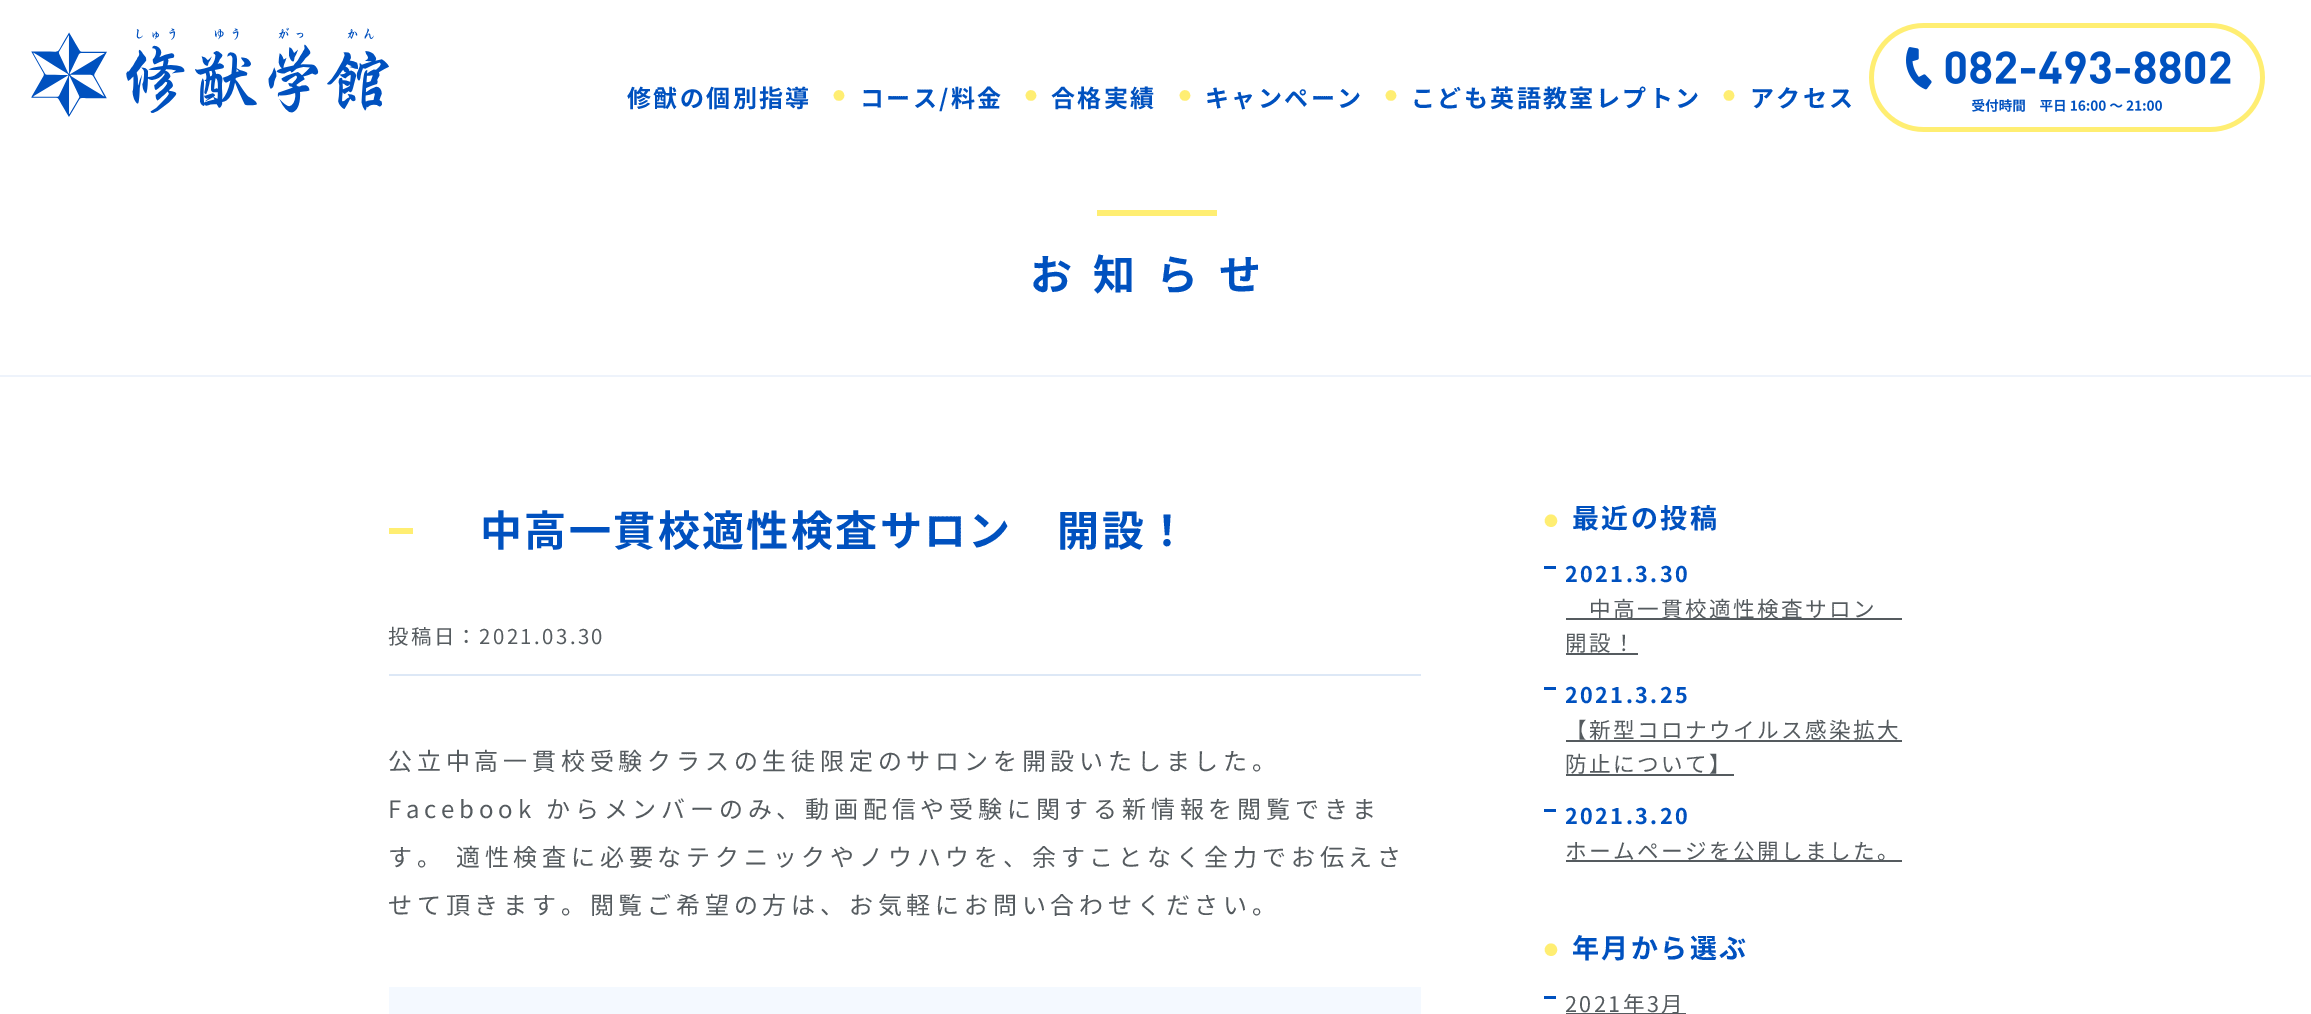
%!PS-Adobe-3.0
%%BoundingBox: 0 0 2311 1014
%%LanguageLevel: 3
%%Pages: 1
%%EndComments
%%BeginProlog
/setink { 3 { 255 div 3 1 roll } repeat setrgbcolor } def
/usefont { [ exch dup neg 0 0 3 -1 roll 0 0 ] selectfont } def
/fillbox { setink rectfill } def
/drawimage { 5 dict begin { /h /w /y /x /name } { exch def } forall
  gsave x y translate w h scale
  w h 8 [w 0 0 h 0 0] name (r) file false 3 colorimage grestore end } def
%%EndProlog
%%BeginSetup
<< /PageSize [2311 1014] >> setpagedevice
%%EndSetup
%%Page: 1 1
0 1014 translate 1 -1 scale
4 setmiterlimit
0 0 2311 1014 255 255 255 fillbox
(assets/img1.rgb) 31 27 358 90 drawimage
/NotoSansJP-Bold 24 usefont
0 81 191 setink
627 107 moveto 2.4 0 (修猷の個別指導) ashow
/NotoSansJP-Regular 12 usefont
255 238 114 setink
833 100 moveto 2.4 0 (●) ashow
/NotoSansJP-Bold 24 usefont
0 81 191 setink
860 107 moveto 2.4 0 (コース/料金) ashow
/NotoSansJP-Regular 12 usefont
255 238 114 setink
1025 100 moveto 2.4 0 (●) ashow
/NotoSansJP-Bold 24 usefont
0 81 191 setink
1051 107 moveto 2.4 0 (合格実績) ashow
/NotoSansJP-Regular 12 usefont
255 238 114 setink
1179 100 moveto 2.4 0 (●) ashow
/NotoSansJP-Bold 24 usefont
0 81 191 setink
1205 107 moveto 2.4 0 (キャンペーン) ashow
/NotoSansJP-Regular 12 usefont
255 238 114 setink
1385 100 moveto 2.4 0 (●) ashow
/NotoSansJP-Bold 24 usefont
0 81 191 setink
1411 107 moveto 2.4 0 (こども英語教室レプトン) ashow
/NotoSansJP-Regular 12 usefont
255 238 114 setink
1723 100 moveto 2.4 0 (●) ashow
/NotoSansJP-Bold 24 usefont
0 81 191 setink
1750 107 moveto 2.4 0 (アクセス) ashow
(assets/img2.rgb) 1869 23 396 109 drawimage
0 375 2311 2 238 243 251 fillbox
1097 210 120 6 255 238 114 fillbox
/NotoSansJP-Bold 42 usefont
0 81 191 setink
1030 290 moveto 21 0 (お知らせ) ashow
389 528 24 6 255 238 114 fillbox
0 81 191 setink
480 546 moveto 2.4 0 (中高一貫校適性検査サロン　開設！) ashow
389 674 1032 2 221 232 246 fillbox
/NotoSansJP-Regular 20.4 usefont
85 91 95 setink
388 644 moveto 2.4 0 (投稿日：2021.03.30) ashow
/NotoSansJP-Regular 24 usefont
388 770 moveto 4.8 0 (公立中高一貫校受験クラスの生徒限定のサロンを開設いたしました。) ashow
388 818 moveto 4.8 0 (Facebook からメンバーのみ、動画配信や受験に関する新情報を閲覧できま) ashow
388 866 moveto 4.8 0 (す。 適性検査に必要なテクニックやノウハウを、余すことなく全力でお伝えさ) ashow
388 914 moveto 4.8 0 (せて頂きます。閲覧ご希望の方は、お気軽にお問い合わせください。) ashow
389 987 1032 27 244 249 255 fillbox
/NotoSansJP-Bold 14 usefont
255 238 114 setink
1544 526 moveto 2.4 0 (●) ashow
/NotoSansJP-Bold 27 usefont
0 81 191 setink
1572 528 moveto 2.4 0 (最近の投稿) ashow
1544 566 12 3 0 81 191 fillbox
/NotoSansJP-Bold 21.6 usefont
1565 582 moveto 2.4 0 (2021.3.30) ashow
1566 618 336 2 85 91 95 fillbox
/NotoSansJP-Regular 21.6 usefont
1589 617 moveto 2.4 0 (中高一貫校適性検査サロン) ashow
1565 651 moveto 2.4 0 (開設！) ashow
1566 653 72 2 85 91 95 fillbox
1544 687 12 3 0 81 191 fillbox
/NotoSansJP-Bold 21.6 usefont
1565 703 moveto 2.4 0 (2021.3.25) ashow
/NotoSansJP-Regular 21.6 usefont
85 91 95 setink
1565 738 moveto 2.4 0 (【新型コロナウイルス感染拡大) ashow
1566 740 336 2 85 91 95 fillbox
1565 772 moveto 2.4 0 (防止について】) ashow
1566 774 168 2 85 91 95 fillbox
1544 809 12 3 0 81 191 fillbox
/NotoSansJP-Bold 21.6 usefont
1565 824 moveto 2.4 0 (2021.3.20) ashow
1566 860 336 2 85 91 95 fillbox
/NotoSansJP-Regular 21.6 usefont
1565 859 moveto 2.4 0 (ホームページを公開しました。) ashow
/NotoSansJP-Bold 14 usefont
255 238 114 setink
1544 955 moveto 2.4 0 (●) ashow
/NotoSansJP-Bold 27 usefont
0 81 191 setink
1572 958 moveto 2.4 0 (年月から選ぶ) ashow
1544 996 12 3 0 81 191 fillbox
1566 1013 120 1 85 91 95 fillbox
/NotoSansJP-Regular 21.6 usefont
1565 1012 moveto 2.4 0 (2021年3月) ashow
showpage
%%EOF
